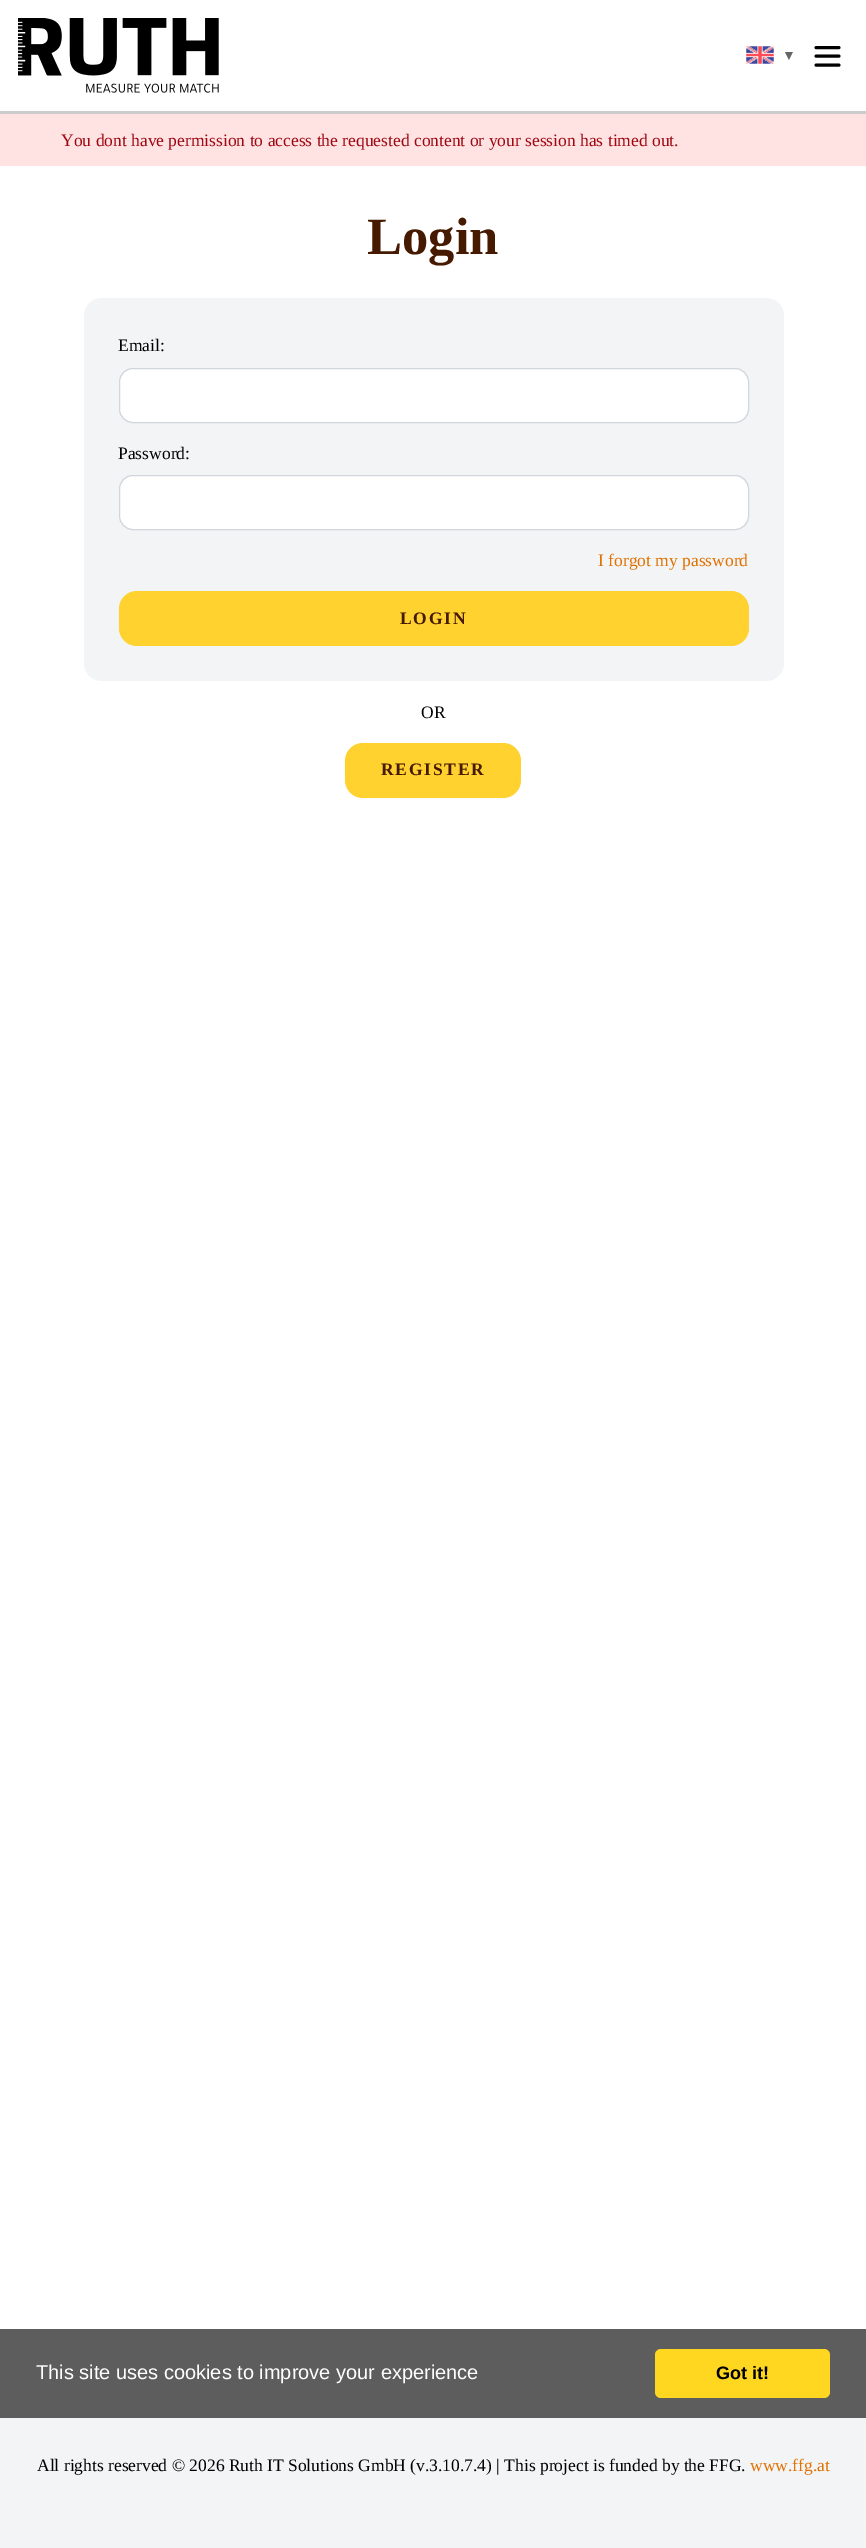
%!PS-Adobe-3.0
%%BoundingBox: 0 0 866 2548
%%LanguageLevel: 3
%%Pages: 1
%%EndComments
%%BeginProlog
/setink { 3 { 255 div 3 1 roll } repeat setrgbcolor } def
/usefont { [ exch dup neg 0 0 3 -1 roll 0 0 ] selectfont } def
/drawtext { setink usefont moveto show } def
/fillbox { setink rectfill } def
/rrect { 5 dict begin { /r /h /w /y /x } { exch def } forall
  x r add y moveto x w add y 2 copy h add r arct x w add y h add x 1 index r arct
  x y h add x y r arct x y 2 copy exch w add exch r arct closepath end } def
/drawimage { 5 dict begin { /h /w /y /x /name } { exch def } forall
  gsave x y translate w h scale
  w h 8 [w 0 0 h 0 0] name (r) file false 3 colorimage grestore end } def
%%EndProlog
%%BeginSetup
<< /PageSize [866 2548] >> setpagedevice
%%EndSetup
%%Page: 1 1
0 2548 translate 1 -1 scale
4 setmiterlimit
0 0 866 2548 255 255 255 fillbox
0 111 866 3 204 204 204 fillbox
(assets/img1.rgb) 18 18 201 75 drawimage
(assets/img2.rgb) 746 46 28 18 drawimage
(▼) 782 60 /LiberationSerif-Regular 14 102 102 102 drawtext
0 0 0 setink
2.9 setlinewidth
1 setlinecap
1 setlinejoin
816 56 moveto 839 56 lineto 816 47.5 moveto 839 47.5 lineto 816 65 moveto 839 65 lineto stroke
0 114 866 52 255 226 226 fillbox
(You dont have permission to access the requested content or your session has timed out.) 61 146 /LiberationSerif-Regular 17.5 159 7 18 drawtext
(Login) 367 254 /LiberationSerif-Bold 52.5 70 25 1 drawtext
243 244 246 setink
84 298 700 383 18 rrect fill
(Email:) 118 351 /LiberationSerif-Regular 17.5 0 0 0 drawtext
255 255 255 setink
119.5 368.5 629 54 13.5 rrect gsave fill grestore
209 213 220 setink
1 setlinewidth
0 setlinecap
0 setlinejoin
stroke
(Password:) 118 459 /LiberationSerif-Regular 17.5 0 0 0 drawtext
255 255 255 setink
119.5 475.5 629 54 13.5 rrect gsave fill grestore
209 213 220 setink
stroke
(I forgot my password) 598 566 /LiberationSerif-Regular 17.5 225 113 0 drawtext
255 210 48 setink
119 591 630 55 18 rrect fill
/LiberationSerif-Bold 17.5 usefont
70 25 1 setink
400 624 moveto 1.75 0 (LOGIN) ashow
(OR) 421 718 /LiberationSerif-Regular 17.5 0 0 0 drawtext
255 210 48 setink
345 743 176 55 18 rrect fill
/LiberationSerif-Bold 17.5 usefont
70 25 1 setink
381 775 moveto 1.75 0 (REGISTER) ashow
0 2329 866 89 93 93 93 fillbox
(This site uses cookies to improve your experience) 36 2379 /LiberationSans-Regular 20 255 255 255 drawtext
255 215 32 setink
655 2349 175 49 6 rrect fill
(Got it!) 716 2379 /LiberationSans-Bold 18 0 0 0 drawtext
0 2418 866 130 243 244 246 fillbox
(All rights reserved © 2026 Ruth IT Solutions GmbH \(v.3.10.7.4\) | This project is funded by the FFG.) 37 2471 /LiberationSerif-Regular 17.5 0 0 0 drawtext
(www.ffg.at) 750 2471 /LiberationSerif-Regular 17.5 225 113 0 drawtext
showpage
%%EOF
